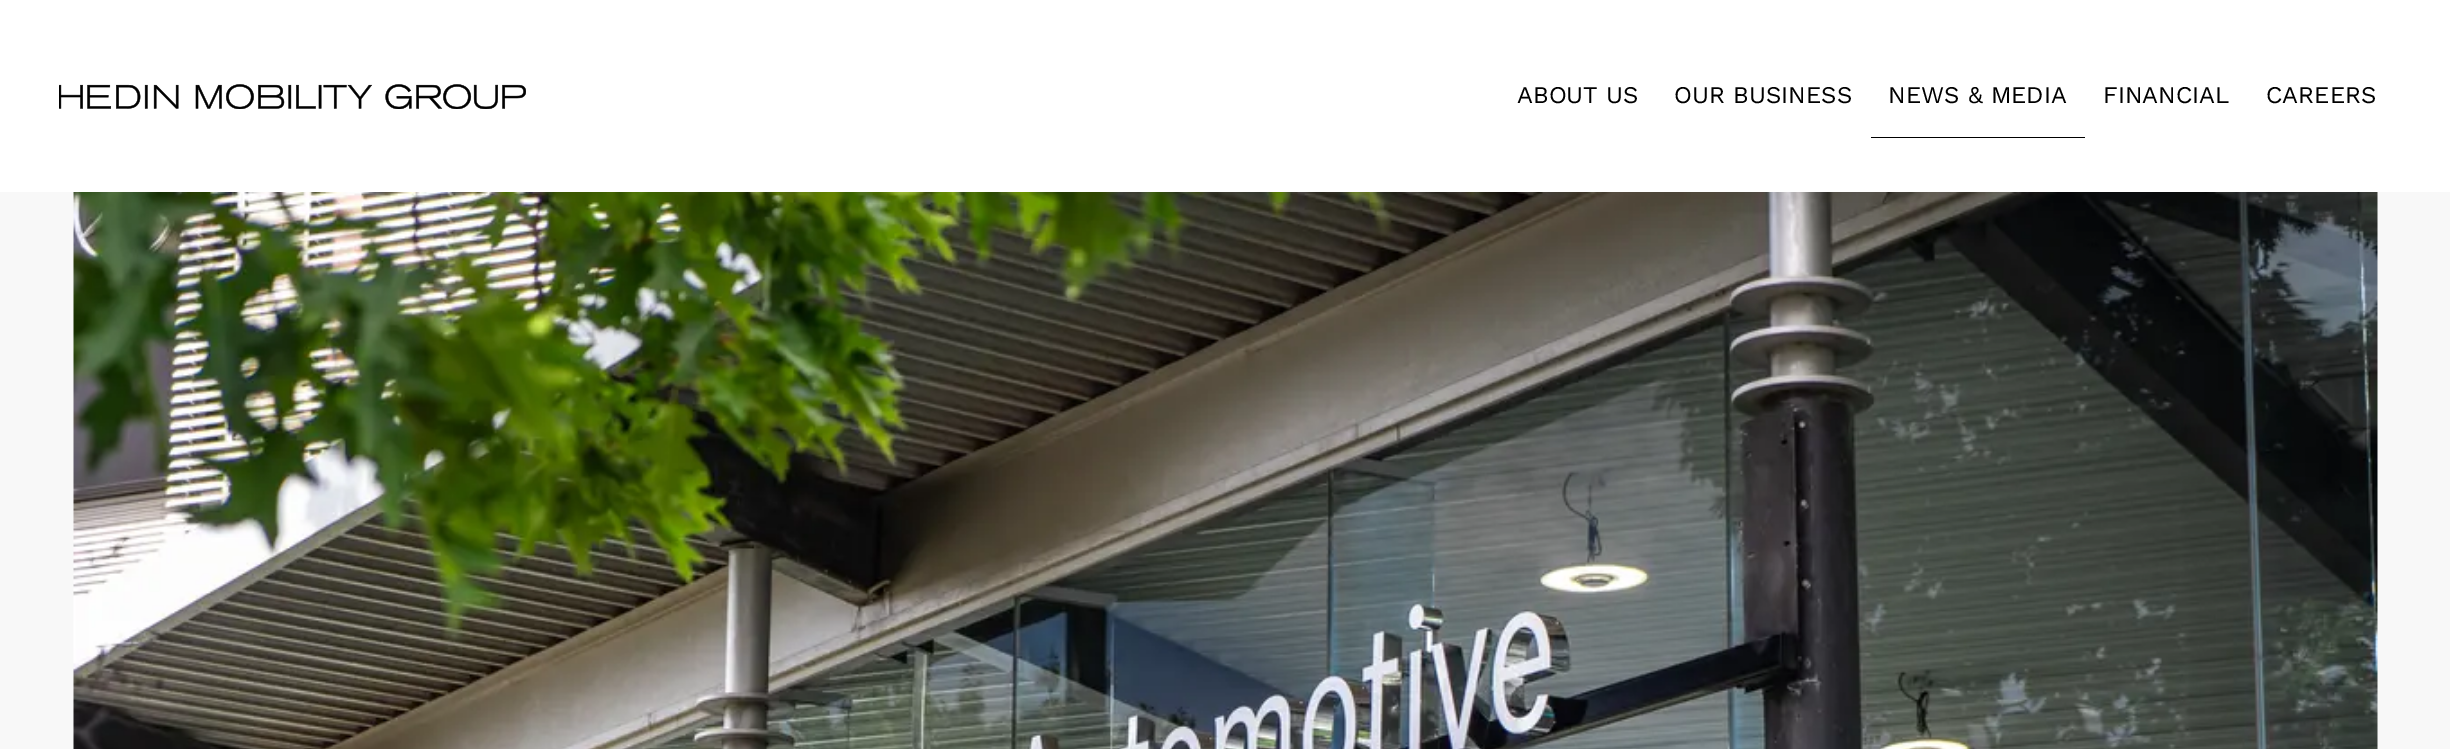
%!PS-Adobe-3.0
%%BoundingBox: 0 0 2450 749
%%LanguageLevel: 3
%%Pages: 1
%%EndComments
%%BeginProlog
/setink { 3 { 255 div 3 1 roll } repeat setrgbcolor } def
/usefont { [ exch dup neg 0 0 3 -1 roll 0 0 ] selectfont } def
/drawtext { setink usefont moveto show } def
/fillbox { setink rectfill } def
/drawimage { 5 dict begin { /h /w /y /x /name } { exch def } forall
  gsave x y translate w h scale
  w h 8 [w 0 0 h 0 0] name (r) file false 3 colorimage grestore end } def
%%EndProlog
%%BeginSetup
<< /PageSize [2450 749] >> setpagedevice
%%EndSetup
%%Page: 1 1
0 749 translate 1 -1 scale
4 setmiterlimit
0 0 2450 749 248 248 248 fillbox
0 0 2450 192 255 255 255 fillbox
(assets/img1.rgb) 59 84 467 25 drawimage
(ABOUT US) 1517 103 /WorkSans-Regular 24 0 0 0 drawtext
(OUR BUSINESS) 1674 103 /WorkSans-Regular 24 0 0 0 drawtext
1871 137 214 1 0 0 0 fillbox
(NEWS & MEDIA) 1888 103 /WorkSans-Regular 24 0 0 0 drawtext
(FINANCIAL) 2103 103 /WorkSans-Regular 24 0 0 0 drawtext
(CAREERS) 2266 103 /WorkSans-Regular 24 0 0 0 drawtext
(assets/img2.rgb) 73 192 2305 557 drawimage
showpage
%%EOF
